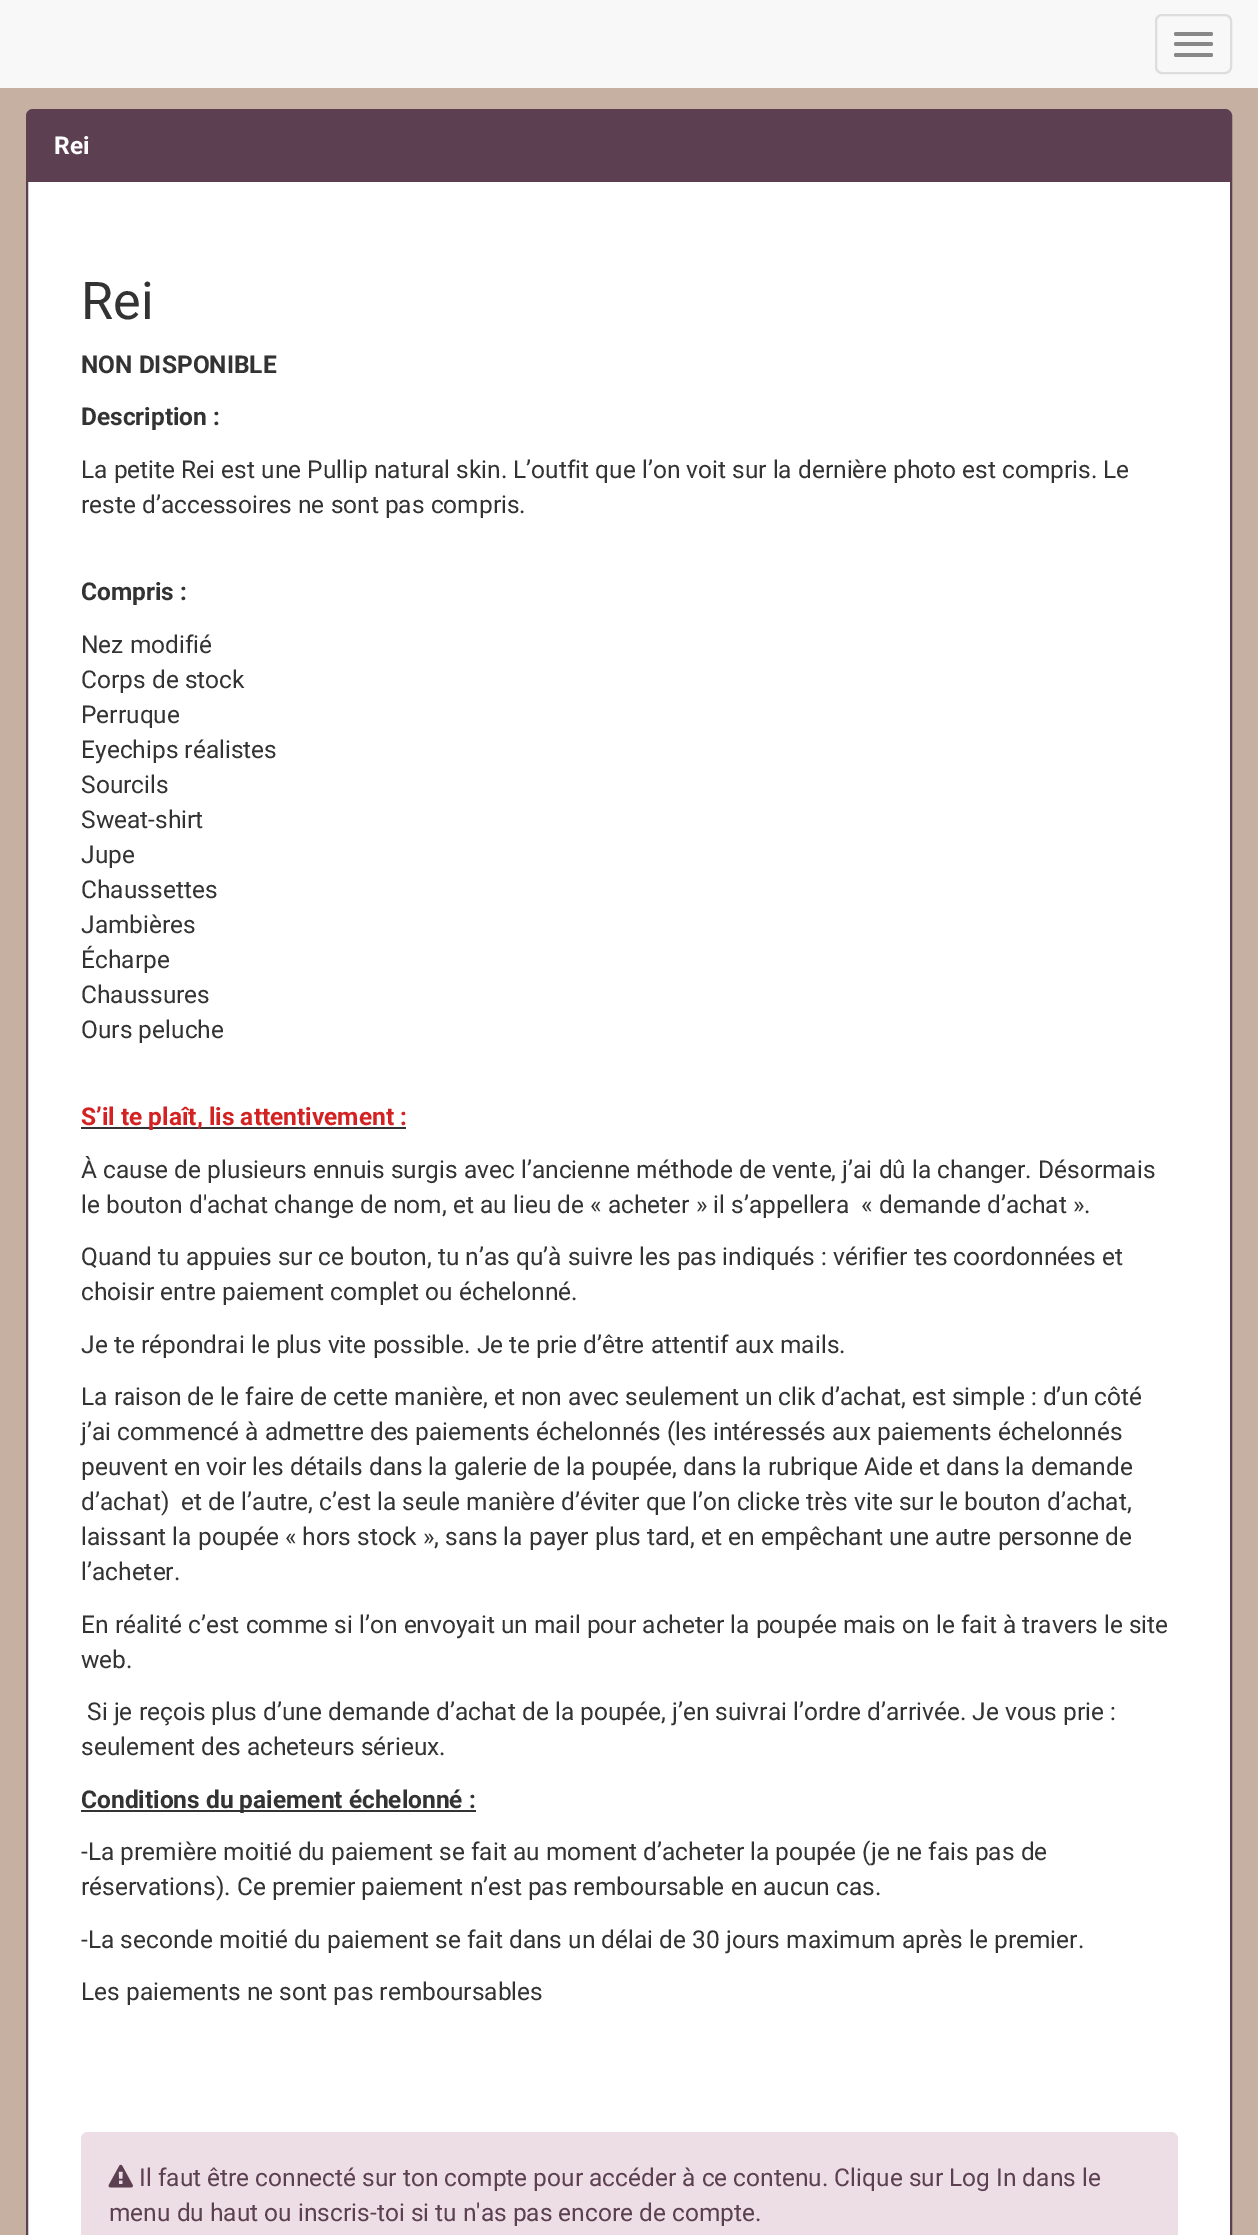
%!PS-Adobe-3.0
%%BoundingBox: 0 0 1258 2235
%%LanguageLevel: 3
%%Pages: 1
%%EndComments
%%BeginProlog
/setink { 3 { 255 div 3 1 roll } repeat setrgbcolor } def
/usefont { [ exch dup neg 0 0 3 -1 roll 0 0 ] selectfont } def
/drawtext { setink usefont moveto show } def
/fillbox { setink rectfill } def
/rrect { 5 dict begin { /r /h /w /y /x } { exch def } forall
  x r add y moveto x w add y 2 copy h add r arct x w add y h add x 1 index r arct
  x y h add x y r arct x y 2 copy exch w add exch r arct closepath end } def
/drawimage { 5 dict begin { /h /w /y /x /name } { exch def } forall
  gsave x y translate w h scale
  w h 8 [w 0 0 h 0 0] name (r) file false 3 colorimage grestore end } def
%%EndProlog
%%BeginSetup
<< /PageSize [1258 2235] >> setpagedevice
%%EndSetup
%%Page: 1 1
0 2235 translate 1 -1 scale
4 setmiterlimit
0 0 1258 2235 197 176 162 fillbox
0 0 1258 88 248 248 248 fillbox
221 221 221 setink
2 setlinewidth
1156 15 75 58 6 rrect stroke
136 136 136 setink
1174 32 39 4 2 rrect fill
1174 42 39 4 2 rrect fill
1174 53 39 4 2 rrect fill
255 255 255 setink
27 110 1204 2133 6 rrect gsave fill grestore
92 64 82 setink
stroke
33 110 moveto 1225 110 lineto 1228 110 1230 112 1230 115 curveto 1230 182 lineto 28 182 lineto 28 115 lineto 28 112 30 110 33 110 curveto closepath fill
(Rei) 54 154 /Roboto-Bold 24.5 255 255 255 drawtext
(Rei) 81 319 /Roboto-Regular 52 51 51 51 drawtext
(NON DISPONIBLE) 81 373 /Roboto-Bold 24.5 51 51 51 drawtext
(Description :) 81 425 /Roboto-Bold 24.5 51 51 51 drawtext
(La petite Rei est une Pullip natural skin. L’outfit que l’on voit sur la dernière photo est compris. Le) 81 478 /Roboto-Regular 24.5 51 51 51 drawtext
(reste d’accessoires ne sont pas compris.) 81 513 /Roboto-Regular 24.5 51 51 51 drawtext
(Compris :) 81 600 /Roboto-Bold 24.5 51 51 51 drawtext
(Nez modifié) 81 653 /Roboto-Regular 24.5 51 51 51 drawtext
(Corps de stock) 81 688 /Roboto-Regular 24.5 51 51 51 drawtext
(Perruque) 81 723 /Roboto-Regular 24.5 51 51 51 drawtext
(Eyechips réalistes) 81 758 /Roboto-Regular 24.5 51 51 51 drawtext
(Sourcils) 81 793 /Roboto-Regular 24.5 51 51 51 drawtext
(Sweat-shirt) 81 828 /Roboto-Regular 24.5 51 51 51 drawtext
(Jupe) 81 863 /Roboto-Regular 24.5 51 51 51 drawtext
(Chaussettes) 81 898 /Roboto-Regular 24.5 51 51 51 drawtext
(Jambières) 81 933 /Roboto-Regular 24.5 51 51 51 drawtext
(Écharpe) 81 968 /Roboto-Regular 24.5 51 51 51 drawtext
(Chaussures) 81 1003 /Roboto-Regular 24.5 51 51 51 drawtext
(Ours peluche) 81 1038 /Roboto-Regular 24.5 51 51 51 drawtext
81 1127 325 2 51 51 51 fillbox
(S’il te plaît, lis attentivement :) 81 1125 /Roboto-Bold 24.5 212 34 34 drawtext
(À cause de plusieurs ennuis surgis avec l’ancienne méthode de vente, j’ai dû la changer. Désormais) 81 1178 /Roboto-Regular 24.5 51 51 51 drawtext
(le bouton d'achat change de nom, et au lieu de « acheter » il s’appellera  « demande d’achat ».) 81 1213 /Roboto-Regular 24.5 51 51 51 drawtext
(Quand tu appuies sur ce bouton, tu n’as qu’à suivre les pas indiqués : vérifier tes coordonnées et) 81 1265 /Roboto-Regular 24.5 51 51 51 drawtext
(choisir entre paiement complet ou échelonné.) 81 1300 /Roboto-Regular 24.5 51 51 51 drawtext
(Je te répondrai le plus vite possible. Je te prie d’être attentif aux mails.) 81 1353 /Roboto-Regular 24.5 51 51 51 drawtext
(La raison de le faire de cette manière, et non avec seulement un clik d’achat, est simple : d’un côté) 81 1405 /Roboto-Regular 24.5 51 51 51 drawtext
(j’ai commencé à admettre des paiements échelonnés \(les intéressés aux paiements échelonnés) 81 1440 /Roboto-Regular 24.5 51 51 51 drawtext
(peuvent en voir les détails dans la galerie de la poupée, dans la rubrique Aide et dans la demande) 81 1475 /Roboto-Regular 24.5 51 51 51 drawtext
(d’achat\)  et de l’autre, c’est la seule manière d’éviter que l’on clicke très vite sur le bouton d’achat,) 81 1510 /Roboto-Regular 24.5 51 51 51 drawtext
(laissant la poupée « hors stock », sans la payer plus tard, et en empêchant une autre personne de) 81 1545 /Roboto-Regular 24.5 51 51 51 drawtext
(l’acheter.) 81 1580 /Roboto-Regular 24.5 51 51 51 drawtext
(En réalité c’est comme si l’on envoyait un mail pour acheter la poupée mais on le fait à travers le site) 81 1633 /Roboto-Regular 24.5 51 51 51 drawtext
(web.) 81 1668 /Roboto-Regular 24.5 51 51 51 drawtext
(Si je reçois plus d’une demande d’achat de la poupée, j’en suivrai l’ordre d’arrivée. Je vous prie :) 87 1720 /Roboto-Regular 24.5 51 51 51 drawtext
(seulement des acheteurs sérieux.) 81 1755 /Roboto-Regular 24.5 51 51 51 drawtext
81 1810 395 2 51 51 51 fillbox
(Conditions du paiement échelonné :) 81 1808 /Roboto-Bold 24.5 51 51 51 drawtext
(-La première moitié du paiement se fait au moment d’acheter la poupée \(je ne fais pas de) 81 1860 /Roboto-Regular 24.5 51 51 51 drawtext
(réservations\). Ce premier paiement n’est pas remboursable en aucun cas.) 81 1895 /Roboto-Regular 24.5 51 51 51 drawtext
(-La seconde moitié du paiement se fait dans un délai de 30 jours maximum après le premier.) 81 1948 /Roboto-Regular 24.5 51 51 51 drawtext
(Les paiements ne sont pas remboursables) 81 2000 /Roboto-Regular 24.5 51 51 51 drawtext
236 222 228 setink
81 2132 1097 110 7 rrect fill
(assets/img1.rgb) 108 2164 25 24 drawimage
(Il faut être connecté sur ton compte pour accéder à ce contenu. Clique sur Log In dans le) 139 2186 /Roboto-Regular 24.5 92 64 82 drawtext
(menu du haut ou inscris-toi si tu n'as pas encore de compte.) 109 2221 /Roboto-Regular 24.5 92 64 82 drawtext
showpage
%%EOF
